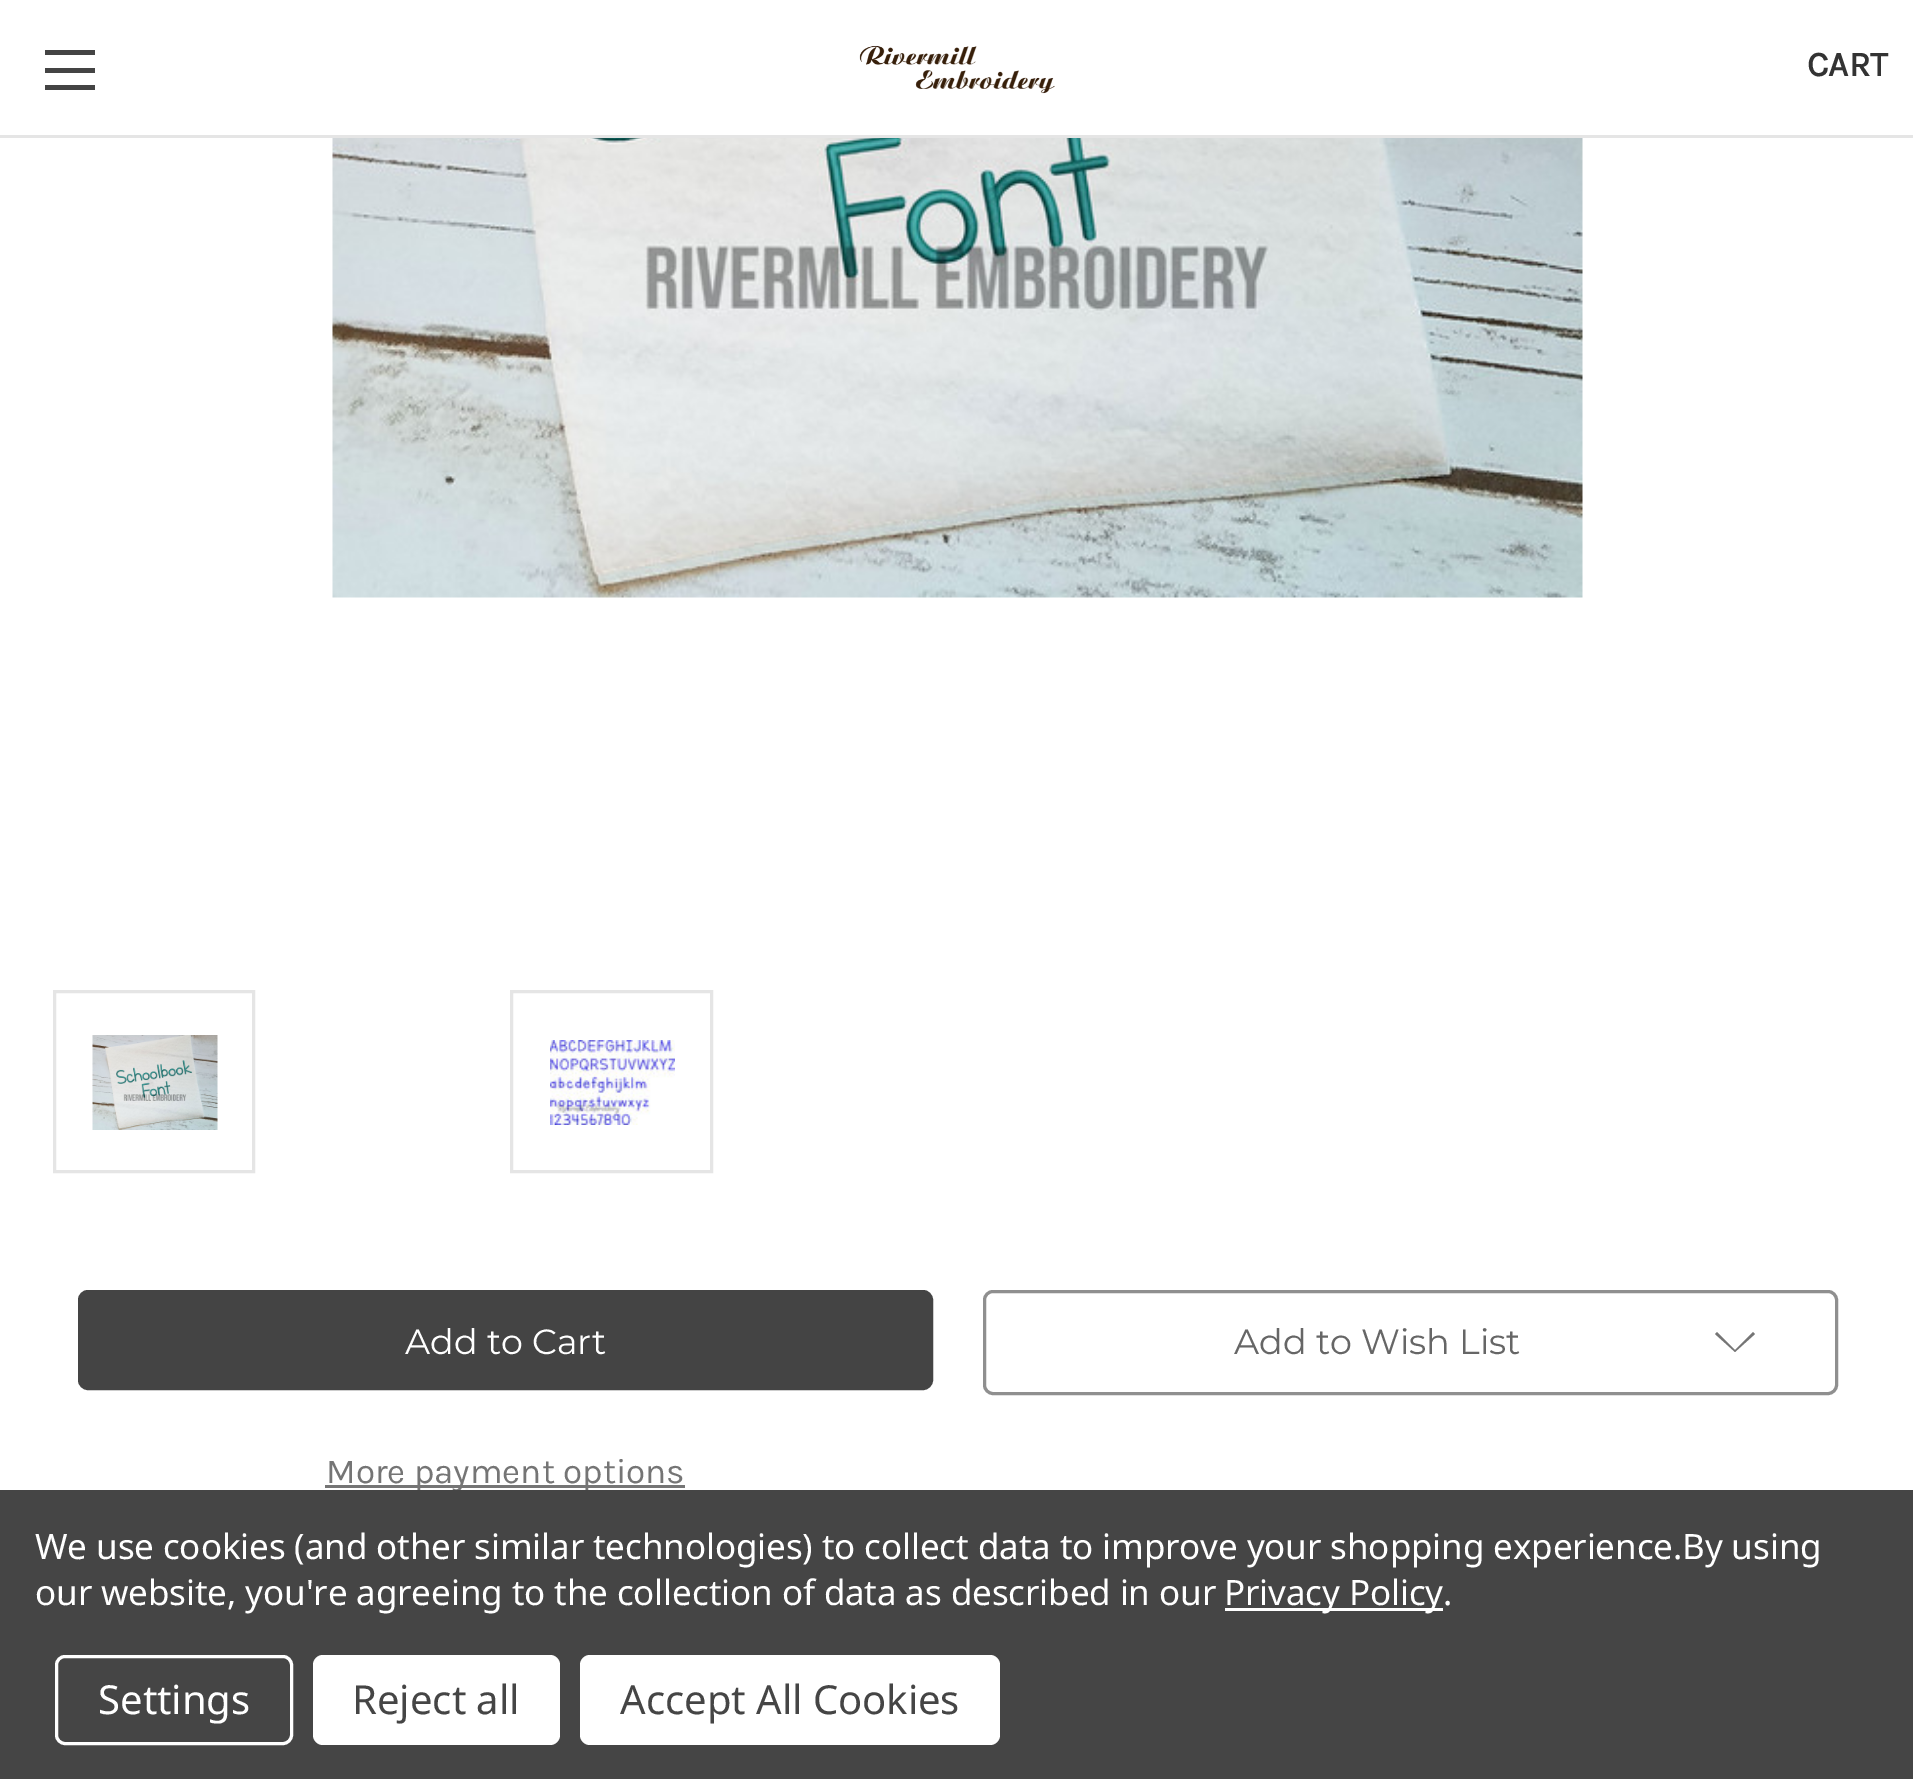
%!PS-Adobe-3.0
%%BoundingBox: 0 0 1913 1779
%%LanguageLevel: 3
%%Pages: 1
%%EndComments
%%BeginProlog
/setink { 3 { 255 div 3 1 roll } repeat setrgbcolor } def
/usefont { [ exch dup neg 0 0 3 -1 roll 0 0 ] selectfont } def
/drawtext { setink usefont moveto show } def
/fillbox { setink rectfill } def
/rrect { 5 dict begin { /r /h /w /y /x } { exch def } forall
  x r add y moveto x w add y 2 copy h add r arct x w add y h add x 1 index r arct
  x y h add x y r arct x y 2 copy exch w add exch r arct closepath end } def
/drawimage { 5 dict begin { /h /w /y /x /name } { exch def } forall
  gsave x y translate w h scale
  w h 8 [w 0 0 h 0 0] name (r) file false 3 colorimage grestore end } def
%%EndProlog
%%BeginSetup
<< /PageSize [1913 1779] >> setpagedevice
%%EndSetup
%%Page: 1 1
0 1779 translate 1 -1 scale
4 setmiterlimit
0 0 1913 1779 255 255 255 fillbox
0 135 1913 3 229 229 229 fillbox
45 68 50 5 68 68 68 fillbox
45 50 50 5 68 68 68 fillbox
45 85 50 5 68 68 68 fillbox
(assets/img1.rgb) 859 45 196 49 drawimage
(CART) 1807 76 /Karla-Bold 35 51 51 51 drawtext
(assets/img2.rgb) 332 138 1251 460 drawimage
229 229 229 setink
3 setlinewidth
54.5 991.5 199 180 rectstroke
(assets/img3.rgb) 92 1035 126 95 drawimage
511.5 991.5 200 180 rectstroke
(assets/img4.rgb) 550 1040 125 85 drawimage
68 68 68 setink
79.5 1291.5 852 97 8.5 rrect gsave fill grestore
stroke
(Add to Cart) 405 1354 /Montserrat-Regular 35 255 255 255 drawtext
325 1485 360 3 117 117 117 fillbox
(More payment options) 326 1483 /Karla-Regular 35 117 117 117 drawtext
143 143 143 setink
984.5 1291.5 852 102 8.5 rrect stroke
(Add to Wish List) 1234 1354 /Montserrat-Regular 35 102 102 102 drawtext
117 117 117 setink
1735 1350 moveto 1753 1332 lineto 1755 1334 lineto 1735 1352 lineto 1715 1334 lineto 1717 1332 lineto closepath eofill
0 1490 1913 289 69 69 69 fillbox
/NotoSans-Regular 35 usefont
255 255 255 setink
35 1559 moveto -0.12 0 (We use cookies \(and other similar technologies\) to collect data to improve your shopping experience.By using) ashow
35 1605 moveto -0.12 0 (our website, you're agreeing to the collection of data as described in our) ashow
1225 1608 218 3 255 255 255 fillbox
1224 1605 moveto -0.12 0 (Privacy Policy.) ashow
56.5 1656.5 235 87 8.5 rrect stroke
(Settings) 98 1714 /NotoSans-Regular 40 255 255 255 drawtext
313 1655 247 90 10 rrect fill
(Reject all) 352 1714 /NotoSans-Regular 40 69 69 69 drawtext
255 255 255 setink
580 1655 420 90 10 rrect fill
(Accept All Cookies) 620 1714 /NotoSans-Regular 40 69 69 69 drawtext
showpage
%%EOF
